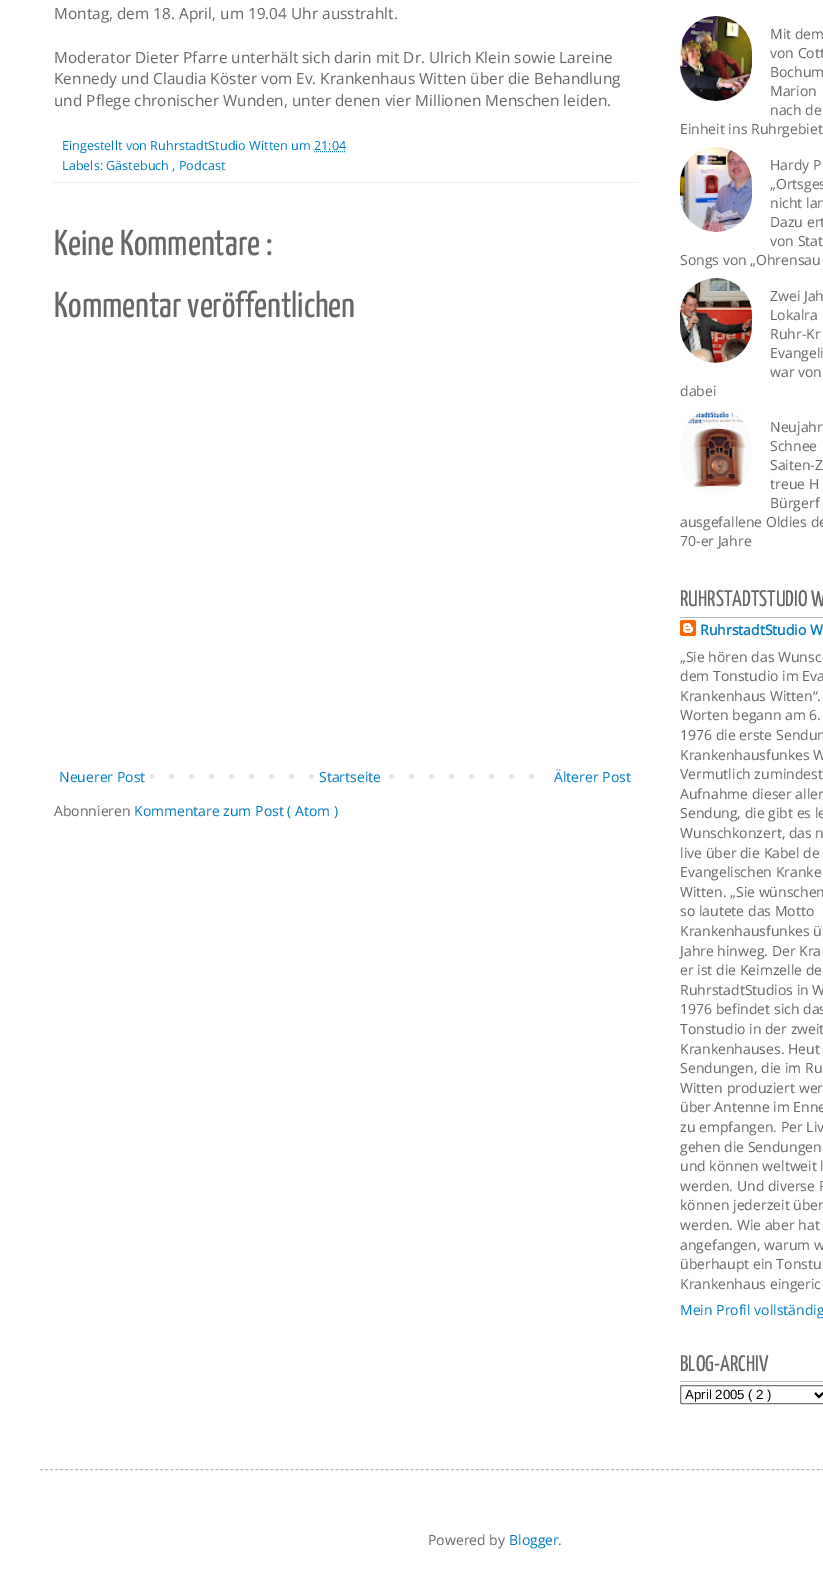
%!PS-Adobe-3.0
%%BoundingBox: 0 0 823 1589
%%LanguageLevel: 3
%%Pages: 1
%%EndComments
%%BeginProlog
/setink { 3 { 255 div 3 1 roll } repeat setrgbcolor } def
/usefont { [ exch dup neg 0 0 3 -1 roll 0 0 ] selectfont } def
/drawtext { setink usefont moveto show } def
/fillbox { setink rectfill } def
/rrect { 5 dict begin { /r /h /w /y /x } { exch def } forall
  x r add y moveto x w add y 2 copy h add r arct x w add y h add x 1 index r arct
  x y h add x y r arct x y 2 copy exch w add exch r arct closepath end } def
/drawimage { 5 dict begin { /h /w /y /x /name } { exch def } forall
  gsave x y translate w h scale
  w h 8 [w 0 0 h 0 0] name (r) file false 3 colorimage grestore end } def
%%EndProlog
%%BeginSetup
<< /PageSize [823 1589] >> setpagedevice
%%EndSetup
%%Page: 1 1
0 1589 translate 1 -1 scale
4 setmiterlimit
0 0 823 1589 255 255 255 fillbox
(Montag, dem 18. April, um 19.04 Uhr ausstrahlt.) 54 19 /OpenSans-Regular 15.4 102 102 102 drawtext
(Moderator Dieter Pfarre unterhält sich darin mit Dr. Ulrich Klein sowie Lareine) 54 63 /OpenSans-Regular 15.4 102 102 102 drawtext
(Kennedy und Claudia Köster vom Ev. Krankenhaus Witten über die Behandlung) 54 84 /OpenSans-Regular 15.4 102 102 102 drawtext
(und Pflege chronischer Wunden, unter denen vier Millionen Menschen leiden.) 54 106 /OpenSans-Regular 15.4 102 102 102 drawtext
52 182 586 1 238 238 238 fillbox
(Eingestellt von RuhrstadtStudio Witten um 21:04) 62 150 /OpenSans-Regular 12.6 0 122 195 drawtext
[1 1] 0 setdash
314 151.5 moveto 346 151.5 lineto stroke
(Labels: Gästebuch , Podcast) 62 170 /OpenSans-Regular 12.6 0 122 195 drawtext
(Keine Kommentare :) 54 255 /YanoneKaffeesatz-ExtraLight 36 102 102 102 drawtext
(Kommentar veröffentlichen) 54 317 /YanoneKaffeesatz-ExtraLight 36 102 102 102 drawtext
(assets/img1.rgb) 150 774 384 5 drawimage
(Neuerer Post) 59 782 /OpenSans-Regular 14 0 122 195 drawtext
314 774 61 5 255 255 255 fillbox
(Startseite) 319 782 /OpenSans-Regular 14 0 122 195 drawtext
(Älterer Post) 554 782 /OpenSans-Regular 14 0 122 195 drawtext
(Abonnieren) 54 816 /OpenSans-Regular 14 102 102 102 drawtext
(Kommentare zum Post \( Atom \)) 134 816 /OpenSans-Regular 14 0 122 195 drawtext
(assets/img2.rgb) 680 16 72 85 drawimage
(Mit dem) 770 39 /OpenSans-Regular 14 102 102 102 drawtext
(von Cott) 770 58 /OpenSans-Regular 14 102 102 102 drawtext
(Bochum) 770 77 /OpenSans-Regular 14 102 102 102 drawtext
(Marion) 770 96 /OpenSans-Regular 14 102 102 102 drawtext
(nach de) 770 115 /OpenSans-Regular 14 102 102 102 drawtext
(Einheit ins Ruhrgebiet) 680 134 /OpenSans-Regular 14 102 102 102 drawtext
(assets/img3.rgb) 680 147 72 85 drawimage
(Hardy P) 770 170 /OpenSans-Regular 14 102 102 102 drawtext
(„Ortsges) 770 189 /OpenSans-Regular 14 102 102 102 drawtext
(nicht lan) 770 208 /OpenSans-Regular 14 102 102 102 drawtext
(Dazu ert) 770 227 /OpenSans-Regular 14 102 102 102 drawtext
(von Stat) 770 246 /OpenSans-Regular 14 102 102 102 drawtext
(Songs von „Ohrensau) 680 265 /OpenSans-Regular 14 102 102 102 drawtext
(assets/img4.rgb) 680 278 72 85 drawimage
(Zwei Jah) 770 301 /OpenSans-Regular 14 102 102 102 drawtext
(Lokalra) 770 320 /OpenSans-Regular 14 102 102 102 drawtext
(Ruhr-Kr) 770 339 /OpenSans-Regular 14 102 102 102 drawtext
(Evangeli) 770 358 /OpenSans-Regular 14 102 102 102 drawtext
(war von) 770 377 /OpenSans-Regular 14 102 102 102 drawtext
(dabei) 680 396 /OpenSans-Regular 14 102 102 102 drawtext
(assets/img5.rgb) 680 409 72 85 drawimage
(Neujahr) 770 432 /OpenSans-Regular 14 102 102 102 drawtext
(Schnee) 770 451 /OpenSans-Regular 14 102 102 102 drawtext
(Saiten-Z) 770 470 /OpenSans-Regular 14 102 102 102 drawtext
(treue H) 770 489 /OpenSans-Regular 14 102 102 102 drawtext
(Bürgerf) 770 508 /OpenSans-Regular 14 102 102 102 drawtext
(ausgefallene Oldies de) 680 527 /OpenSans-Regular 14 102 102 102 drawtext
(70-er Jahre) 680 546 /OpenSans-Regular 14 102 102 102 drawtext
680 617 143 1 187 187 187 fillbox
(RUHRSTADTSTUDIO W) 680 606 /YanoneKaffeesatz-ExtraLight 22.5 102 102 102 drawtext
(assets/img6.rgb) 680 620 16 16 drawimage
(RuhrstadtStudio W) 700 635 /OpenSans-Bold 14 0 122 195 drawtext
(„Sie hören das Wunsc) 680 662 /OpenSans-Regular 14 102 102 102 drawtext
(dem Tonstudio im Eva) 680 681 /OpenSans-Regular 14 102 102 102 drawtext
(Krankenhaus Witten“.) 680 701 /OpenSans-Regular 14 102 102 102 drawtext
(Worten begann am 6.) 680 720 /OpenSans-Regular 14 102 102 102 drawtext
(1976 die erste Sendun) 680 740 /OpenSans-Regular 14 102 102 102 drawtext
(Krankenhausfunkes W) 680 760 /OpenSans-Regular 14 102 102 102 drawtext
(Vermutlich zumindest) 680 779 /OpenSans-Regular 14 102 102 102 drawtext
(Aufnahme dieser aller) 680 799 /OpenSans-Regular 14 102 102 102 drawtext
(Sendung, die gibt es le) 680 818 /OpenSans-Regular 14 102 102 102 drawtext
(Wunschkonzert, das n) 680 838 /OpenSans-Regular 14 102 102 102 drawtext
(live über die Kabel de) 680 858 /OpenSans-Regular 14 102 102 102 drawtext
(Evangelischen Kranke) 680 877 /OpenSans-Regular 14 102 102 102 drawtext
(Witten. „Sie wünschen) 680 897 /OpenSans-Regular 14 102 102 102 drawtext
(so lautete das Motto) 680 916 /OpenSans-Regular 14 102 102 102 drawtext
(Krankenhausfunkes ü) 680 936 /OpenSans-Regular 14 102 102 102 drawtext
(Jahre hinweg. Der Kra) 680 956 /OpenSans-Regular 14 102 102 102 drawtext
(er ist die Keimzelle de) 680 975 /OpenSans-Regular 14 102 102 102 drawtext
(RuhrstadtStudios in W) 680 995 /OpenSans-Regular 14 102 102 102 drawtext
(1976 befindet sich das) 680 1014 /OpenSans-Regular 14 102 102 102 drawtext
(Tonstudio in der zweit) 680 1034 /OpenSans-Regular 14 102 102 102 drawtext
(Krankenhauses. Heut) 680 1054 /OpenSans-Regular 14 102 102 102 drawtext
(Sendungen, die im Ru) 680 1073 /OpenSans-Regular 14 102 102 102 drawtext
(Witten produziert wer) 680 1093 /OpenSans-Regular 14 102 102 102 drawtext
(über Antenne im Enne) 680 1112 /OpenSans-Regular 14 102 102 102 drawtext
(zu empfangen. Per Liv) 680 1132 /OpenSans-Regular 14 102 102 102 drawtext
(gehen die Sendungen) 680 1152 /OpenSans-Regular 14 102 102 102 drawtext
(und können weltweit l) 680 1171 /OpenSans-Regular 14 102 102 102 drawtext
(werden. Und diverse P) 680 1191 /OpenSans-Regular 14 102 102 102 drawtext
(können jederzeit über) 680 1210 /OpenSans-Regular 14 102 102 102 drawtext
(werden. Wie aber hat) 680 1230 /OpenSans-Regular 14 102 102 102 drawtext
(angefangen, warum w) 680 1250 /OpenSans-Regular 14 102 102 102 drawtext
(überhaupt ein Tonstu) 680 1269 /OpenSans-Regular 14 102 102 102 drawtext
(Krankenhaus eingeric) 680 1289 /OpenSans-Regular 14 102 102 102 drawtext
(Mein Profil vollständig) 680 1315 /OpenSans-Regular 14 0 122 195 drawtext
680 1381 143 1 187 187 187 fillbox
(BLOG-ARCHIV) 680 1371 /YanoneKaffeesatz-ExtraLight 22.5 102 102 102 drawtext
118 118 118 setink
[] 0 setdash
680.5 1385.5 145 18 1.5 rrect stroke
0 0 0 setink
2 setlinewidth
815 1393 moveto 819 1397 lineto 823 1393 lineto stroke
(April 2005 \( 2 \)) 685 1399 /LiberationSans-Regular 13.25 0 0 0 drawtext
187 187 187 setink
1 setlinewidth
[3 2.01] 0 setdash
40 1469.5 moveto 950 1469.5 lineto stroke
(Powered by) 428 1545 /OpenSans-Regular 14 102 102 102 drawtext
(Blogger) 509 1545 /OpenSans-Regular 14 0 122 195 drawtext
(.) 558 1545 /OpenSans-Regular 14 102 102 102 drawtext
showpage
%%EOF
